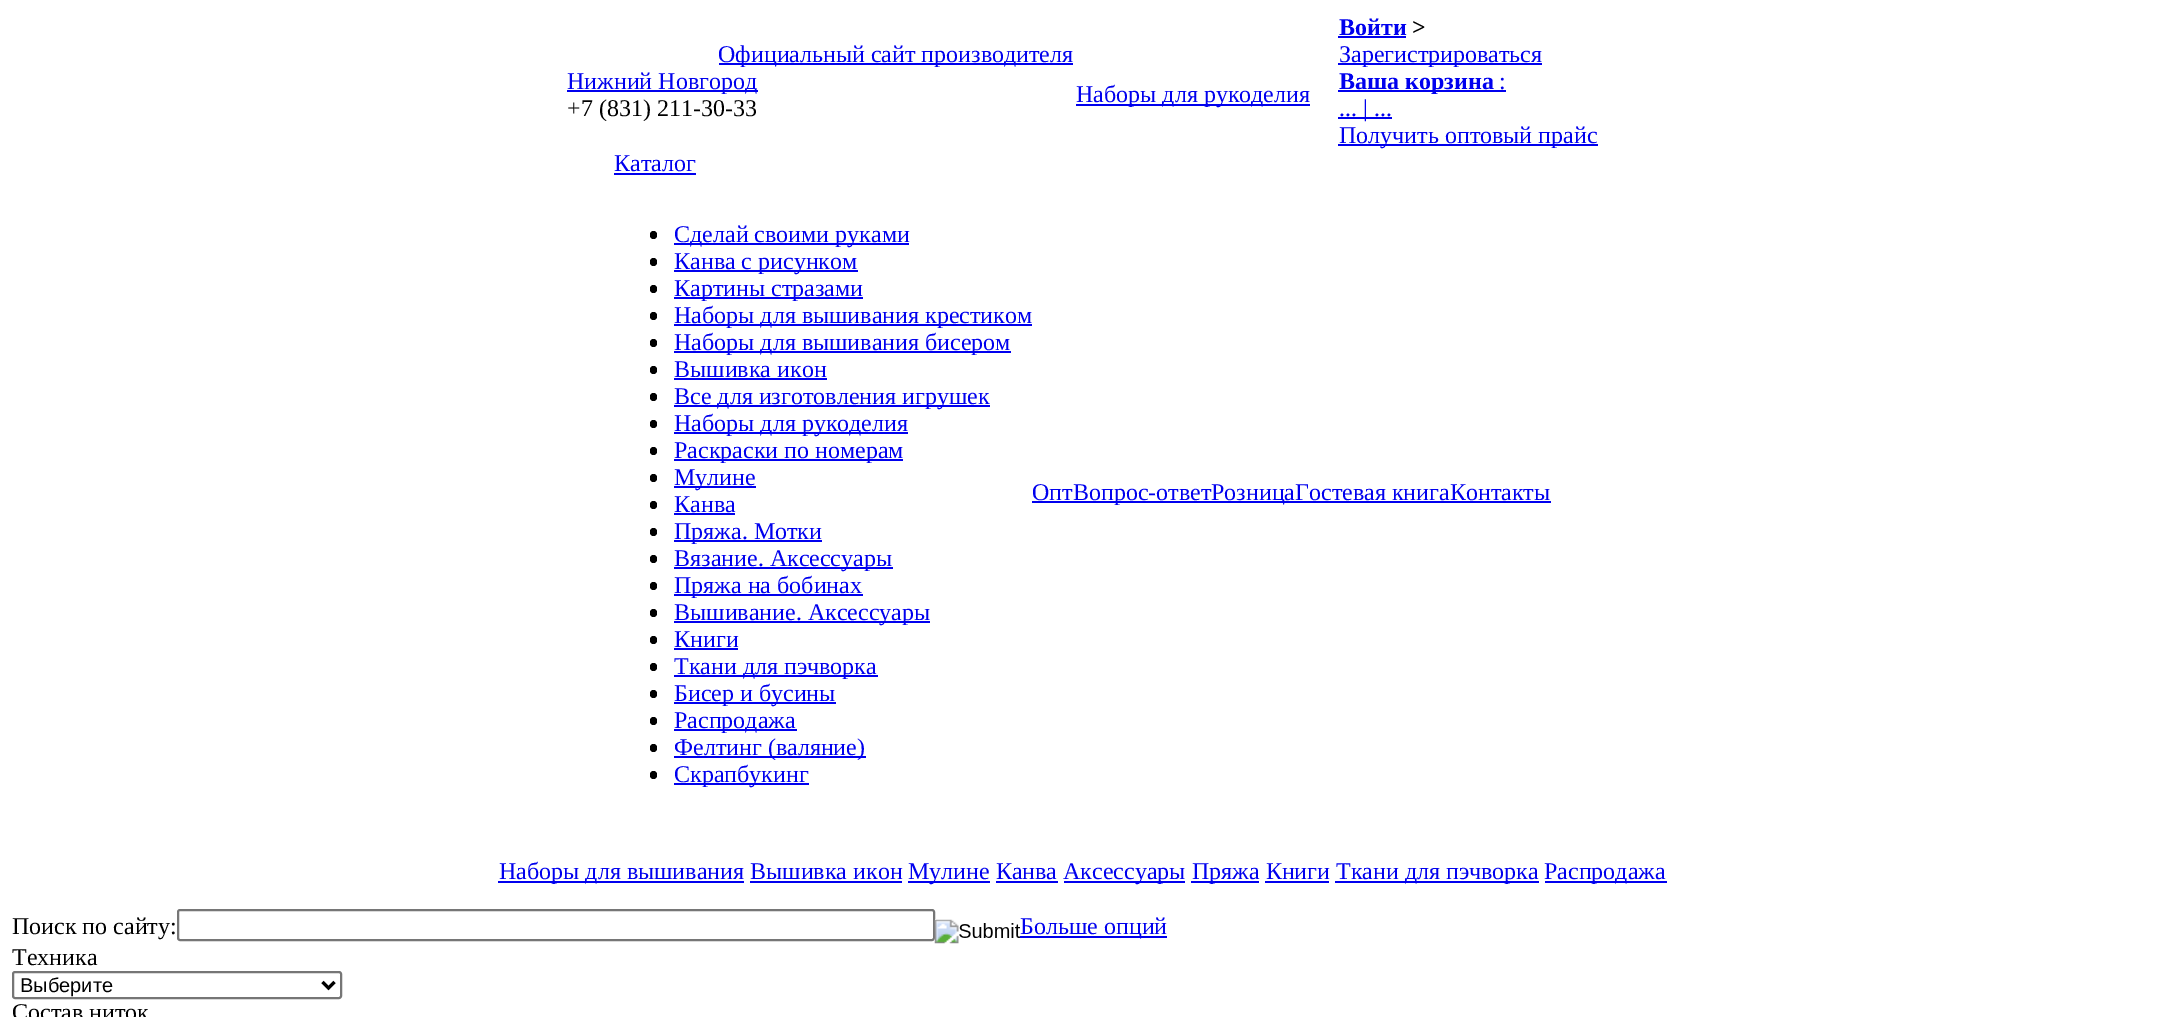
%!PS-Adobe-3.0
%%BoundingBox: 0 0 2164 1017
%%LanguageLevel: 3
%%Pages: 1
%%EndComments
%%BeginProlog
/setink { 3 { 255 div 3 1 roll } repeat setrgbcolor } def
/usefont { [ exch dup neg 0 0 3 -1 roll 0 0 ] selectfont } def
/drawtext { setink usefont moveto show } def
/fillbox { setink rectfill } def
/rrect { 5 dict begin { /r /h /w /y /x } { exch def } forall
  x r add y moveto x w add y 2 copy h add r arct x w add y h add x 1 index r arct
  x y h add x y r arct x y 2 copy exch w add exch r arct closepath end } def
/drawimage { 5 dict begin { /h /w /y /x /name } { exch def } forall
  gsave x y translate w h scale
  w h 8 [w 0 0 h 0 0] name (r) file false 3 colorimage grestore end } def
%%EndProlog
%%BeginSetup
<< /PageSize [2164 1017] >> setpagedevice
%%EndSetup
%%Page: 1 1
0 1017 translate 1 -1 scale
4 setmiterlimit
0 0 2164 1017 255 255 255 fillbox
719 63 354 2 0 0 238 fillbox
(Официальный сайт производителя) 718 62 /LiberationSerif-Regular 24 0 0 238 drawtext
567 90 191 2 0 0 238 fillbox
(Нижний Новгород) 567 89 /LiberationSerif-Regular 24 0 0 238 drawtext
(+7 \(831\) 211-30-33) 567 116 /LiberationSerif-Regular 24 0 0 0 drawtext
1076 104 234 2 0 0 238 fillbox
(Наборы для рукоделия) 1076 102 /LiberationSerif-Regular 24 0 0 238 drawtext
(Войти) 1339 35 /LiberationSerif-Bold 24 0 0 238 drawtext
1338 36 68 2 0 0 238 fillbox
(>) 1412 35 /LiberationSerif-Bold 24 0 0 0 drawtext
1338 63 204 2 0 0 238 fillbox
(Зарегистрироваться) 1339 62 /LiberationSerif-Regular 24 0 0 238 drawtext
1338 90 168 2 0 0 238 fillbox
(Ваша корзина) 1339 89 /LiberationSerif-Bold 24 0 0 238 drawtext
(:) 1499 89 /LiberationSerif-Regular 24 0 0 238 drawtext
1338 117 54 2 0 0 238 fillbox
(... | ...) 1339 116 /LiberationSerif-Regular 24 0 0 238 drawtext
1338 144 260 2 0 0 238 fillbox
(Получить оптовый прайс) 1339 143 /LiberationSerif-Regular 24 0 0 238 drawtext
(Каталог) 614 171 /LiberationSerif-Regular 24 0 0 238 drawtext
614 173 82 2 0 0 238 fillbox
0 0 0 setink
650 231 7 8 3.5 rrect fill
674 243 235 2 0 0 238 fillbox
(Сделай своими руками) 674 242 /LiberationSerif-Regular 24 0 0 238 drawtext
0 0 0 setink
650 258 7 8 3.5 rrect fill
674 270 184 2 0 0 238 fillbox
(Канва с рисунком) 674 269 /LiberationSerif-Regular 24 0 0 238 drawtext
0 0 0 setink
650 285 7 8 3.5 rrect fill
674 297 189 2 0 0 238 fillbox
(Картины стразами) 674 296 /LiberationSerif-Regular 24 0 0 238 drawtext
0 0 0 setink
650 312 7 8 3.5 rrect fill
674 324 358 2 0 0 238 fillbox
(Наборы для вышивания крестиком) 674 323 /LiberationSerif-Regular 24 0 0 238 drawtext
0 0 0 setink
650 339 7 8 3.5 rrect fill
674 351 337 2 0 0 238 fillbox
(Наборы для вышивания бисером) 674 350 /LiberationSerif-Regular 24 0 0 238 drawtext
0 0 0 setink
650 366 7 8 3.5 rrect fill
(Вышивка икон) 674 377 /LiberationSerif-Regular 24 0 0 238 drawtext
674 378 153 2 0 0 238 fillbox
0 0 0 setink
650 393 7 8 3.5 rrect fill
674 405 316 2 0 0 238 fillbox
(Все для изготовления игрушек) 674 404 /LiberationSerif-Regular 24 0 0 238 drawtext
0 0 0 setink
650 420 7 8 3.5 rrect fill
674 432 234 2 0 0 238 fillbox
(Наборы для рукоделия) 674 431 /LiberationSerif-Regular 24 0 0 238 drawtext
0 0 0 setink
650 447 7 8 3.5 rrect fill
674 459 229 2 0 0 238 fillbox
(Раскраски по номерам) 674 458 /LiberationSerif-Regular 24 0 0 238 drawtext
0 0 0 setink
650 474 7 8 3.5 rrect fill
674 486 82 2 0 0 238 fillbox
(Мулине) 674 485 /LiberationSerif-Regular 24 0 0 238 drawtext
0 0 0 setink
650 501 7 8 3.5 rrect fill
(Канва) 674 512 /LiberationSerif-Regular 24 0 0 238 drawtext
674 513 61 2 0 0 238 fillbox
0 0 0 setink
650 528 7 8 3.5 rrect fill
674 540 148 2 0 0 238 fillbox
(Пряжа. Мотки) 674 539 /LiberationSerif-Regular 24 0 0 238 drawtext
0 0 0 setink
650 555 7 8 3.5 rrect fill
674 567 219 2 0 0 238 fillbox
(Вязание. Аксессуары) 674 566 /LiberationSerif-Regular 24 0 0 238 drawtext
0 0 0 setink
650 582 7 8 3.5 rrect fill
674 594 189 2 0 0 238 fillbox
(Пряжа на бобинах) 674 593 /LiberationSerif-Regular 24 0 0 238 drawtext
0 0 0 setink
650 609 7 8 3.5 rrect fill
674 621 256 2 0 0 238 fillbox
(Вышивание. Аксессуары) 674 620 /LiberationSerif-Regular 24 0 0 238 drawtext
0 0 0 setink
650 636 7 8 3.5 rrect fill
(Книги) 674 647 /LiberationSerif-Regular 24 0 0 238 drawtext
674 648 64 2 0 0 238 fillbox
0 0 0 setink
650 663 7 8 3.5 rrect fill
674 675 204 2 0 0 238 fillbox
(Ткани для пэчворка) 674 674 /LiberationSerif-Regular 24 0 0 238 drawtext
0 0 0 setink
650 690 7 8 3.5 rrect fill
674 702 162 2 0 0 238 fillbox
(Бисер и бусины) 674 701 /LiberationSerif-Regular 24 0 0 238 drawtext
0 0 0 setink
650 717 7 8 3.5 rrect fill
674 729 123 2 0 0 238 fillbox
(Распродажа) 674 728 /LiberationSerif-Regular 24 0 0 238 drawtext
0 0 0 setink
650 744 7 8 3.5 rrect fill
674 756 192 2 0 0 238 fillbox
(Фелтинг \(валяние\)) 674 755 /LiberationSerif-Regular 24 0 0 238 drawtext
0 0 0 setink
650 771 7 8 3.5 rrect fill
674 783 135 2 0 0 238 fillbox
(Скрапбукинг) 674 782 /LiberationSerif-Regular 24 0 0 238 drawtext
1032 501 519 2 0 0 238 fillbox
(ОптВопрос-ответРозницаГостевая книгаКонтакты) 1032 500 /LiberationSerif-Regular 24 0 0 238 drawtext
498 881 246 2 0 0 238 fillbox
(Наборы для вышивания Вышивка икон) 499 879 /LiberationSerif-Regular 24 0 0 238 drawtext
908 881 82 2 0 0 238 fillbox
(Мулине Канва) 908 879 /LiberationSerif-Regular 24 0 0 238 drawtext
1064 881 121 2 0 0 238 fillbox
(Аксессуары) 1063 879 /LiberationSerif-Regular 24 0 0 238 drawtext
1191 881 68 2 0 0 238 fillbox
(Пряжа Книги) 1192 879 /LiberationSerif-Regular 24 0 0 238 drawtext
1335 881 204 2 0 0 238 fillbox
(Ткани для пэчворка) 1336 879 /LiberationSerif-Regular 24 0 0 238 drawtext
1545 881 122 2 0 0 238 fillbox
(Распродажа) 1544 879 /LiberationSerif-Regular 24 0 0 238 drawtext
750 881 152 2 0 0 238 fillbox
996 881 62 2 0 0 238 fillbox
1265 881 64 2 0 0 238 fillbox
(Поиск по сайту:) 12 934 /LiberationSerif-Regular 24 0 0 0 drawtext
118 118 118 setink
2 setlinewidth
178 910 756 30 2 rrect stroke
(assets/img1.rgb) 934 919 86 25 drawimage
1020 936 147 2 0 0 238 fillbox
(Больше опций) 1020 934 /LiberationSerif-Regular 24 0 0 238 drawtext
(Техника) 12 965 /LiberationSerif-Regular 24 0 0 0 drawtext
118 118 118 setink
13 972 328 26 2 rrect stroke
0 0 0 setink
3 setlinewidth
322.5 982 moveto 328.5 988 lineto 334.5 982 lineto stroke
(Выберите) 20 992 /LiberationSans-Regular 20 0 0 0 drawtext
(Состав ниток) 12 1020 /LiberationSerif-Regular 24 0 0 0 drawtext
showpage
%%EOF
